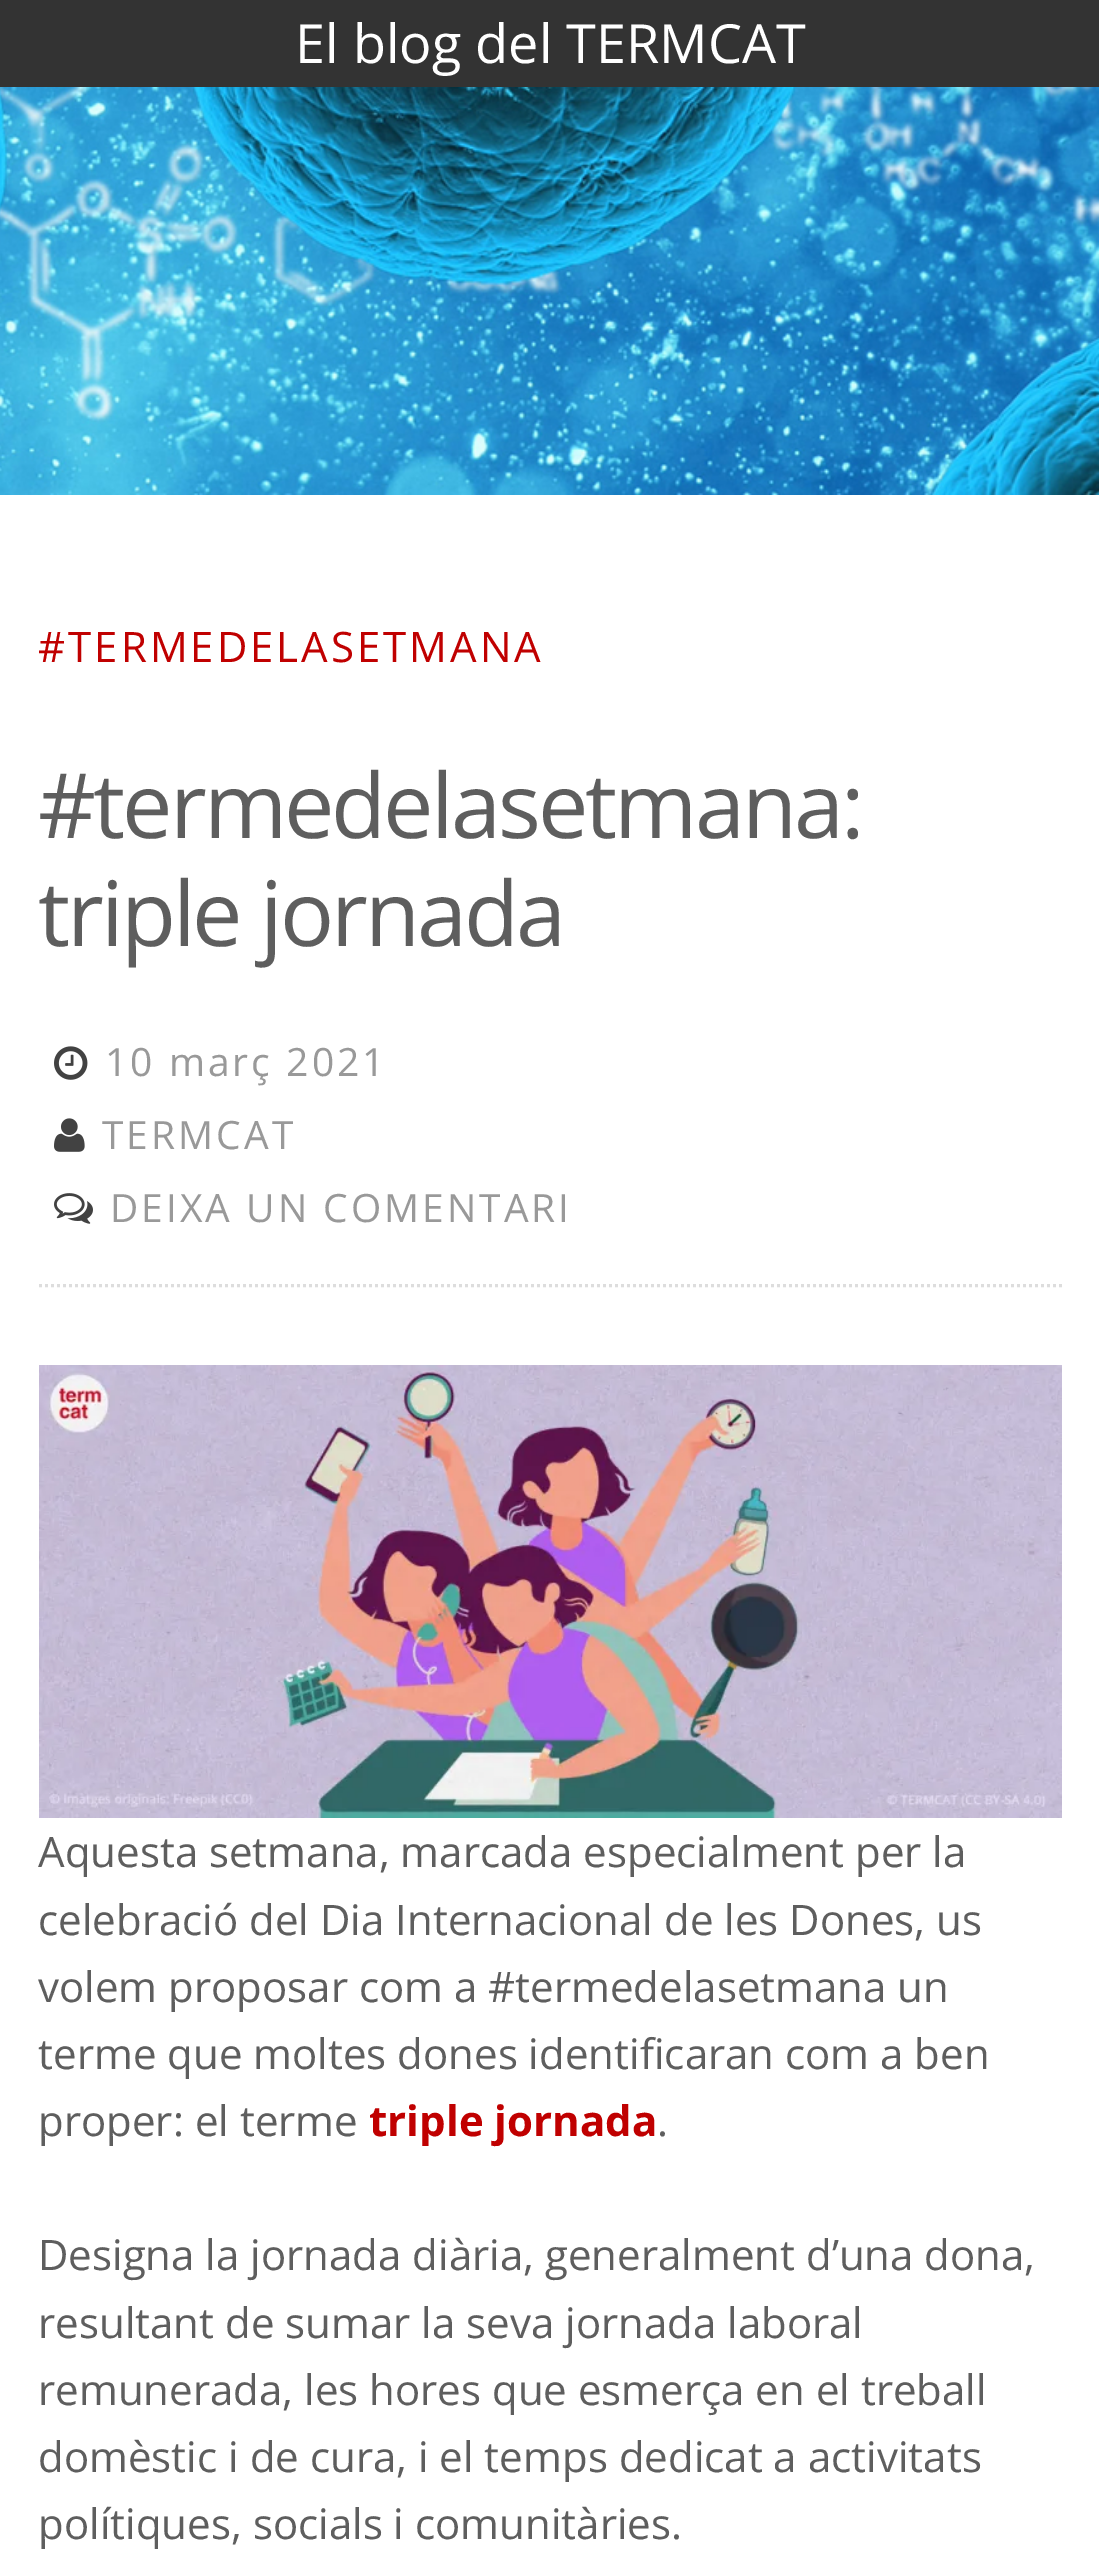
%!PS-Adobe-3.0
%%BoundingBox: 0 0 1099 2574
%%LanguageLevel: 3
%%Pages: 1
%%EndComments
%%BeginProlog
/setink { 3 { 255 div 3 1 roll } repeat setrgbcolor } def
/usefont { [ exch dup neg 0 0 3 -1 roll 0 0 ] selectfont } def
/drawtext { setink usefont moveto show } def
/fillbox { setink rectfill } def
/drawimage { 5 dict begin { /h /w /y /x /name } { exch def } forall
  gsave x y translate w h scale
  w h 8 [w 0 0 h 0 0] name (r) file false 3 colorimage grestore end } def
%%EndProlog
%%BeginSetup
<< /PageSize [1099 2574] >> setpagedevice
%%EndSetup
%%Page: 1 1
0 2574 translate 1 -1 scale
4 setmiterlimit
0 0 1099 2574 255 255 255 fillbox
0 0 1099 87 51 51 51 fillbox
(El blog del TERMCAT) 295 63 /OpenSans-Regular 54 255 255 255 drawtext
(assets/img1.rgb) 0 87 1099 408 drawimage
/OpenSans-Regular 42 usefont
192 0 0 setink
38 662 moveto 3 0 (#TERMEDELASETMANA) ashow
/OpenSans-Regular 90 usefont
94 94 94 setink
38 838 moveto -3 0 (#termedelasetmana:) ashow
38 946 moveto -3 0 (triple jornada) ashow
221 221 221 setink
3 setlinewidth
[3 3] 0 setdash
39 1285.5 moveto 1062 1285.5 lineto stroke
(assets/img2.rgb) 54 1046 34 34 drawimage
/OpenSans-Regular 39 usefont
153 153 153 setink
105 1076 moveto 3 0 (10 març 2021) ashow
(assets/img3.rgb) 54 1118 31 34 drawimage
102 1149 moveto 3 0 (TERMCAT) ashow
(assets/img4.rgb) 54 1193 39 31 drawimage
110 1222 moveto 3 0 (DEIXA UN COMENTARI) ashow
(assets/img5.rgb) 39 1365 1023 453 drawimage
(Aquesta setmana, marcada especialment per la) 38 1867 /OpenSans-Regular 42 94 94 94 drawtext
(celebració del Dia Internacional de les Dones, us) 38 1935 /OpenSans-Regular 42 94 94 94 drawtext
(volem proposar com a #termedelasetmana un) 38 2002 /OpenSans-Regular 42 94 94 94 drawtext
(terme que moltes dones identificaran com a ben) 38 2069 /OpenSans-Regular 42 94 94 94 drawtext
(proper: el terme) 38 2136 /OpenSans-Regular 42 94 94 94 drawtext
(triple jornada) 369 2136 /OpenSans-Bold 42 192 0 0 drawtext
(.) 657 2136 /OpenSans-Regular 42 94 94 94 drawtext
(Designa la jornada diària, generalment d’una dona,) 38 2270 /OpenSans-Regular 42 94 94 94 drawtext
(resultant de sumar la seva jornada laboral) 38 2338 /OpenSans-Regular 42 94 94 94 drawtext
(remunerada, les hores que esmerça en el treball) 38 2405 /OpenSans-Regular 42 94 94 94 drawtext
(domèstic i de cura, i el temps dedicat a activitats) 38 2472 /OpenSans-Regular 42 94 94 94 drawtext
(polítiques, socials i comunitàries.) 38 2539 /OpenSans-Regular 42 94 94 94 drawtext
showpage
%%EOF
